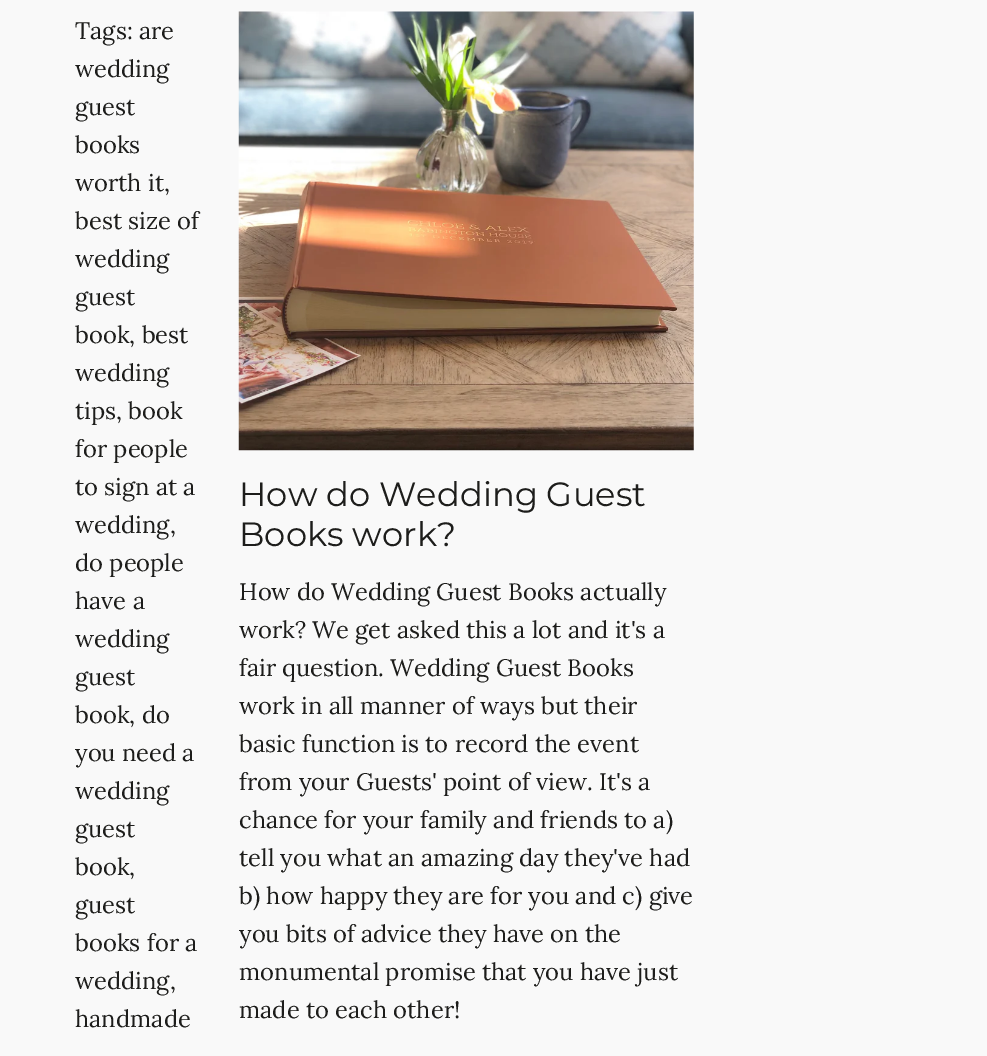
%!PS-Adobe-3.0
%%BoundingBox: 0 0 987 1056
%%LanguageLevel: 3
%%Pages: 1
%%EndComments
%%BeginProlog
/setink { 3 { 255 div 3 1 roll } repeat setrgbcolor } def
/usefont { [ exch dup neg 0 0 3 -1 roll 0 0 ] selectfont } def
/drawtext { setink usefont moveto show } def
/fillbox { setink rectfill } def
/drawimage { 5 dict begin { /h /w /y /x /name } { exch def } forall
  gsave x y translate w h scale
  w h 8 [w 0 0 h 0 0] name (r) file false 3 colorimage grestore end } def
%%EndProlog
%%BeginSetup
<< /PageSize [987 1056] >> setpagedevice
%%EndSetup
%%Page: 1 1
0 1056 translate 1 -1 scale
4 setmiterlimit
0 0 987 1056 249 249 249 fillbox
(Tags: are) 75 39 /Lora-Regular 23.75 29 29 27 drawtext
(wedding) 75 77 /Lora-Regular 23.75 29 29 27 drawtext
(guest) 75 115 /Lora-Regular 23.75 29 29 27 drawtext
(books) 75 153 /Lora-Regular 23.75 29 29 27 drawtext
(worth it,) 75 191 /Lora-Regular 23.75 29 29 27 drawtext
(best size of) 75 229 /Lora-Regular 23.75 29 29 27 drawtext
(wedding) 75 267 /Lora-Regular 23.75 29 29 27 drawtext
(guest) 75 305 /Lora-Regular 23.75 29 29 27 drawtext
(book, best) 75 343 /Lora-Regular 23.75 29 29 27 drawtext
(wedding) 75 381 /Lora-Regular 23.75 29 29 27 drawtext
(tips, book) 75 419 /Lora-Regular 23.75 29 29 27 drawtext
(for people) 75 457 /Lora-Regular 23.75 29 29 27 drawtext
(to sign at a) 75 495 /Lora-Regular 23.75 29 29 27 drawtext
(wedding,) 75 533 /Lora-Regular 23.75 29 29 27 drawtext
(do people) 75 571 /Lora-Regular 23.75 29 29 27 drawtext
(have a) 75 609 /Lora-Regular 23.75 29 29 27 drawtext
(wedding) 75 647 /Lora-Regular 23.75 29 29 27 drawtext
(guest) 75 685 /Lora-Regular 23.75 29 29 27 drawtext
(book, do) 75 723 /Lora-Regular 23.75 29 29 27 drawtext
(you need a) 75 761 /Lora-Regular 23.75 29 29 27 drawtext
(wedding) 75 799 /Lora-Regular 23.75 29 29 27 drawtext
(guest) 75 837 /Lora-Regular 23.75 29 29 27 drawtext
(book,) 75 875 /Lora-Regular 23.75 29 29 27 drawtext
(guest) 75 913 /Lora-Regular 23.75 29 29 27 drawtext
(books for a) 75 951 /Lora-Regular 23.75 29 29 27 drawtext
(wedding,) 75 989 /Lora-Regular 23.75 29 29 27 drawtext
(handmade) 75 1027 /Lora-Regular 23.75 29 29 27 drawtext
(assets/img1.rgb) 238 11 456 440 drawimage
(How do Wedding Guest) 239 506 /Montserrat-Regular 33.75 29 29 27 drawtext
(Books work?) 239 546 /Montserrat-Regular 33.75 29 29 27 drawtext
(How do Wedding Guest Books actually) 239 600 /Lora-Regular 23.75 29 29 27 drawtext
(work? We get asked this a lot and it's a) 239 638 /Lora-Regular 23.75 29 29 27 drawtext
(fair question. Wedding Guest Books) 239 676 /Lora-Regular 23.75 29 29 27 drawtext
(work in all manner of ways but their) 239 714 /Lora-Regular 23.75 29 29 27 drawtext
(basic function is to record the event) 239 752 /Lora-Regular 23.75 29 29 27 drawtext
(from your Guests' point of view. It's a) 239 790 /Lora-Regular 23.75 29 29 27 drawtext
(chance for your family and friends to a\)) 239 828 /Lora-Regular 23.75 29 29 27 drawtext
(tell you what an amazing day they've had) 239 866 /Lora-Regular 23.75 29 29 27 drawtext
(b\) how happy they are for you and c\) give) 239 904 /Lora-Regular 23.75 29 29 27 drawtext
(you bits of advice they have on the) 239 942 /Lora-Regular 23.75 29 29 27 drawtext
(monumental promise that you have just) 239 980 /Lora-Regular 23.75 29 29 27 drawtext
(made to each other!) 239 1018 /Lora-Regular 23.75 29 29 27 drawtext
showpage
%%EOF
